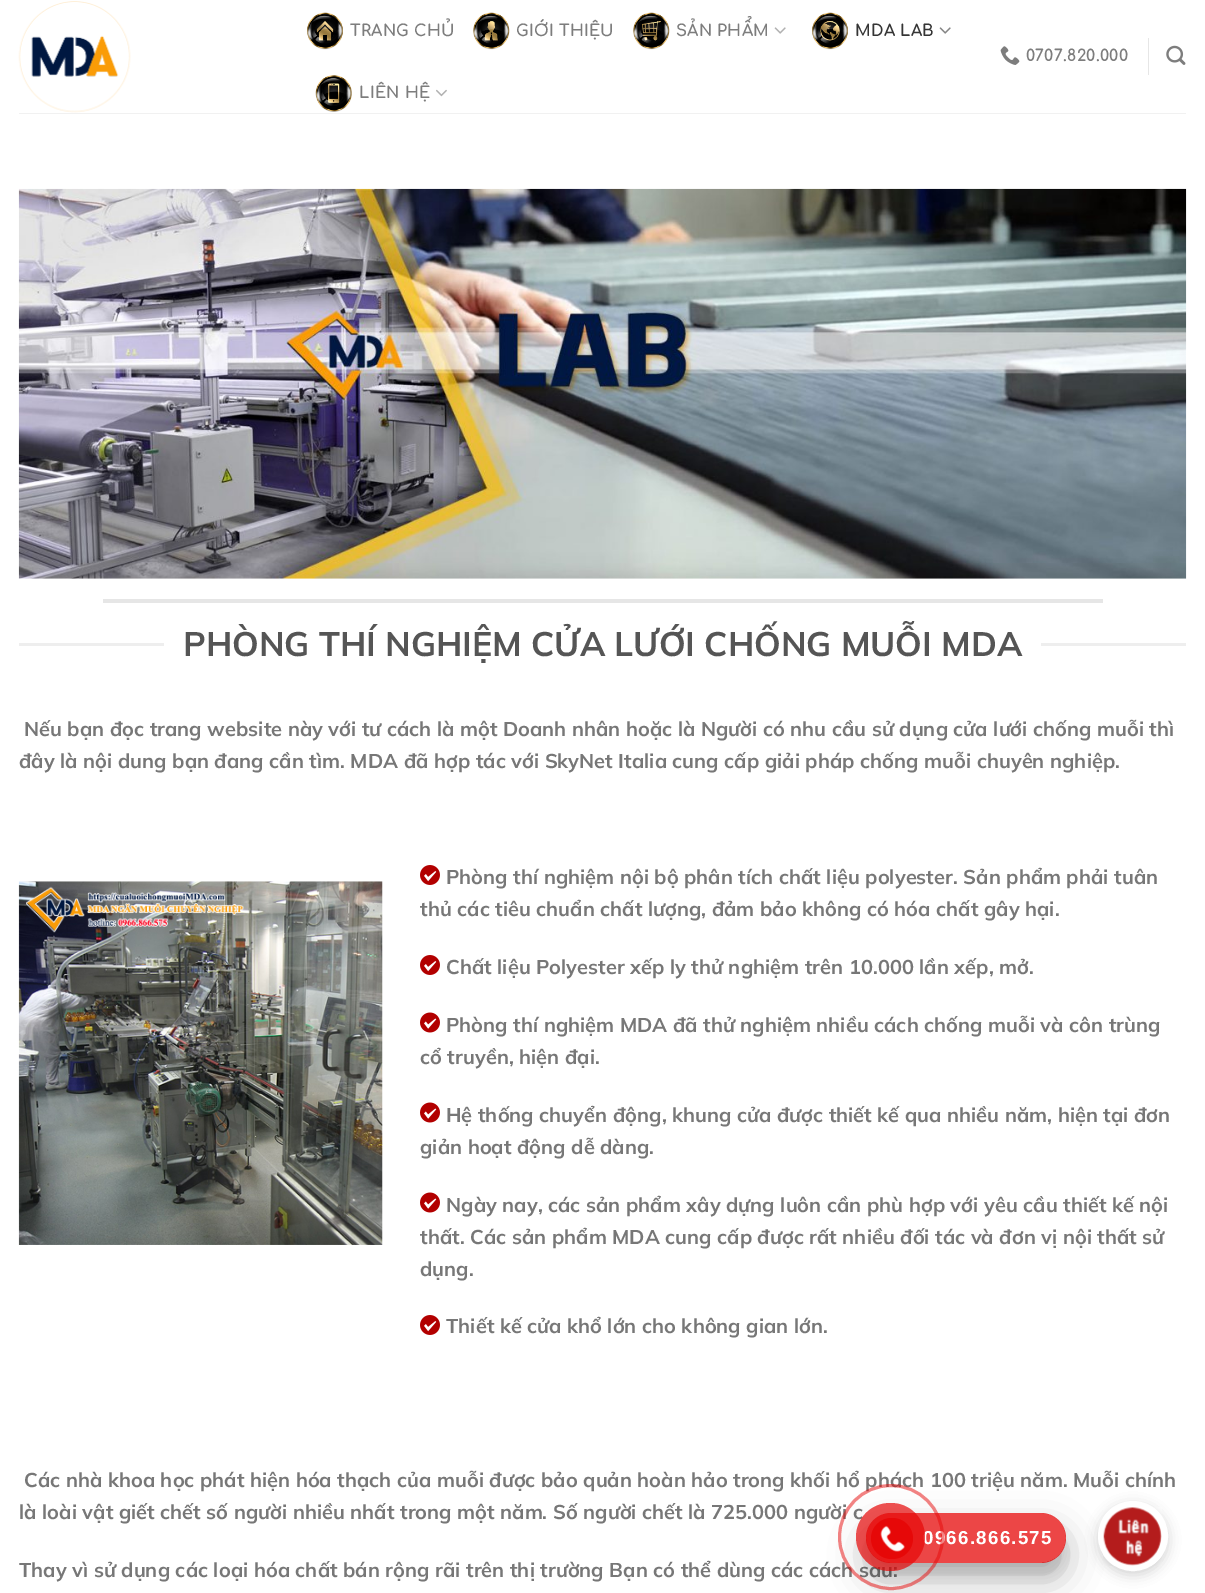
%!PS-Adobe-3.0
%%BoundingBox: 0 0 1205 1593
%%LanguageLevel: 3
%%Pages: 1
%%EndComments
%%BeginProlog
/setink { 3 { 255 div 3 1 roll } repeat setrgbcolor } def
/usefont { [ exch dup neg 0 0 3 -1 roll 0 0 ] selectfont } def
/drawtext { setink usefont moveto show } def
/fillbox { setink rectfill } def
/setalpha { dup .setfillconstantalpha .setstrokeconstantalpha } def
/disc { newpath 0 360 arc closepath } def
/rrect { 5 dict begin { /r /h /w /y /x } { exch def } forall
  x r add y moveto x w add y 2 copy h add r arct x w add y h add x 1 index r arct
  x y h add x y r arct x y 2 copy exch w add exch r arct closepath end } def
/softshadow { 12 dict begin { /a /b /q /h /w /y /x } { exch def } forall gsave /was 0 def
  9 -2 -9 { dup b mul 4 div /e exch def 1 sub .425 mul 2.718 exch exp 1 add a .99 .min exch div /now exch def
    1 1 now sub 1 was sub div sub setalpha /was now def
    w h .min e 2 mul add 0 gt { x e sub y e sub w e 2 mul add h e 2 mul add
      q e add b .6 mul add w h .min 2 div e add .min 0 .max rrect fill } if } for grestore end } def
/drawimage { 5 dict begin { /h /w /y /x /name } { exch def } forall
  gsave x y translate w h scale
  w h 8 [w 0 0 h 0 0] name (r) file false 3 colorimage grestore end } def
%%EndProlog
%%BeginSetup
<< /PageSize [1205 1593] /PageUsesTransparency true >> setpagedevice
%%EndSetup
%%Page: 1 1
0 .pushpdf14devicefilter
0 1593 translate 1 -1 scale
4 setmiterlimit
0 0 1205 1593 255 255 255 fillbox
(assets/img1.rgb) 18 1 113 112 drawimage
(assets/img2.rgb) 307 12 36 38 drawimage
/Comfortaa-Bold 16 usefont
125 125 125 setink
350 36 moveto 0.25 0 (TRANG CHỦ) ashow
(assets/img3.rgb) 473 12 37 38 drawimage
516 36 moveto 0.25 0 (GIỚI THIỆU) ashow
(assets/img4.rgb) 633 12 37 38 drawimage
676 36 moveto 0.25 0 (SẢN PHẨM) ashow
(assets/img5.rgb) 774 27 12 7 drawimage
(assets/img6.rgb) 812 12 36 38 drawimage
53 53 53 setink
855 36 moveto 0.25 0 (MDA LAB) ashow
(assets/img7.rgb) 939 27 12 7 drawimage
(assets/img8.rgb) 315 75 37 37 drawimage
125 125 125 setink
359 98 moveto 0.25 0 (LIÊN HỆ) ashow
(assets/img9.rgb) 436 89 11 8 drawimage
(assets/img10.rgb) 1000 46 20 19 drawimage
1026 61 moveto 0.25 0 (0707.820.000) ashow
1148 38 1 37 230 230 230 fillbox
(assets/img11.rgb) 1166 45 20 20 drawimage
19 113 1167 1 241 241 241 fillbox
(assets/img12.rgb) 18 188 1169 391 drawimage
103 599 1000 4 230 230 230 fillbox
19 643 145 3 238 238 238 fillbox
(PHÒNG THÍ NGHIỆM CỬA LƯỚI CHỐNG MUỖI MDA) 183 656 /Mulish-Bold 34 85 85 85 drawtext
1041 643 145 3 238 238 238 fillbox
(Nếu bạn đọc trang website này với tư cách là một Doanh nhân hoặc là Người có nhu cầu sử dụng cửa lưới chống muỗi thì) 24 736 /Mulish-Bold 20 119 119 119 drawtext
(đây là nội dung bạn đang cần tìm. MDA đã hợp tác với SkyNet Italia cung cấp giải pháp chống muỗi chuyên nghiệp.) 19 768 /Mulish-Bold 20 119 119 119 drawtext
(assets/img13.rgb) 18 881 365 364 drawimage
(assets/img14.rgb) 420 865 20 20 drawimage
(Phòng thí nghiệm nội bộ phân tích chất liệu polyester. Sản phẩm phải tuân) 446 884 /Mulish-Bold 20 119 119 119 drawtext
(thủ các tiêu chuẩn chất lượng, đảm bảo không có hóa chất gây hại.) 420 916 /Mulish-Bold 20 119 119 119 drawtext
(assets/img14.rgb) 420 955 20 20 drawimage
(Chất liệu Polyester xếp ly thử nghiệm trên 10.000 lần xếp, mở.) 446 974 /Mulish-Bold 20 119 119 119 drawtext
(assets/img15.rgb) 420 1012 20 21 drawimage
(Phòng thí nghiệm MDA đã thử nghiệm nhiều cách chống muỗi và côn trùng) 446 1032 /Mulish-Bold 20 119 119 119 drawtext
(cổ truyền, hiện đại.) 420 1064 /Mulish-Bold 20 119 119 119 drawtext
(assets/img15.rgb) 420 1102 20 21 drawimage
(Hệ thống chuyển động, khung cửa được thiết kế qua nhiều năm, hiện tại đơn) 446 1122 /Mulish-Bold 20 119 119 119 drawtext
(giản hoạt động dễ dàng.) 420 1154 /Mulish-Bold 20 119 119 119 drawtext
(assets/img15.rgb) 420 1192 20 21 drawimage
(Ngày nay, các sản phẩm xây dựng luôn cần phù hợp với yêu cầu thiết kế nội) 446 1212 /Mulish-Bold 20 119 119 119 drawtext
(thất. Các sản phẩm MDA cung cấp được rất nhiều đối tác và đơn vị nội thất sử) 420 1244 /Mulish-Bold 20 119 119 119 drawtext
(dụng.) 420 1276 /Mulish-Bold 20 119 119 119 drawtext
(assets/img14.rgb) 420 1315 20 20 drawimage
(Thiết kế cửa khổ lớn cho không gian lớn.) 446 1333 /Mulish-Bold 20 119 119 119 drawtext
(Các nhà khoa học phát hiện hóa thạch của muỗi được bảo quản hoàn hảo trong khối hổ phách 100 triệu năm. Muỗi chính) 24 1487 /Mulish-Bold 20 119 119 119 drawtext
(là loài vật giết chết số người nhiều nhất trong một năm. Số người chết là 725.000 người c) 19 1519 /Mulish-Bold 20 119 119 119 drawtext
(Thay vì sử dụng các loại hóa chất bán rộng rãi trên thị trường Bạn có thể dùng các cách sau:) 19 1577 /Mulish-Bold 20 119 119 119 drawtext
gsave
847 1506 moveto 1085 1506 lineto 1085 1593 lineto 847 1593 lineto closepath 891 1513 moveto 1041 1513 lineto 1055 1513 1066 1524 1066 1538 curveto 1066 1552 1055 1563 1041 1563 curveto 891 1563 lineto 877 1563 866 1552 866 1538 curveto 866 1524 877 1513 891 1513 curveto closepath eoclip newpath
0 0 0 setink
866 1525 200 50 25 6 0.1 softshadow
grestore
gsave
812 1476 moveto 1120 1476 lineto 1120 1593 lineto 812 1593 lineto closepath 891 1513 moveto 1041 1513 lineto 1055 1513 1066 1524 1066 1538 curveto 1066 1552 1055 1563 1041 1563 curveto 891 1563 lineto 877 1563 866 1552 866 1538 curveto 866 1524 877 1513 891 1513 curveto closepath eoclip newpath
0 0 0 setink
866 1530 200 50 25 17.5 0.25 softshadow
grestore
0.75 setalpha
230 8 8 setink
866 1513 200 50 25 rrect fill
/LiberationSans-Bold 18.75 usefont
1 setalpha
255 255 255 setink
923 1544 moveto 1.25 0 (0966.866.575) ashow
0.5 setalpha
230 8 8 setink
3 setlinewidth
891 1537 51.5 disc stroke
0.7 setalpha
856 1503 69 68 34 rrect fill
1 setalpha
871 1518 42 41 20.5 rrect fill
(assets/img16.rgb) 880 1525 25 27 drawimage
0 0 0 setink
1098 1505 70 70 35 6 0.08 softshadow
1098 1505 70 70 35 6 0.08 softshadow
255 255 255 setink
1133 1536 32 disc gsave fill grestore
6 setlinewidth
stroke
(assets/img17.rgb) 1103 1507 59 59 drawimage
.poppdf14devicefilter showpage
%%EOF
